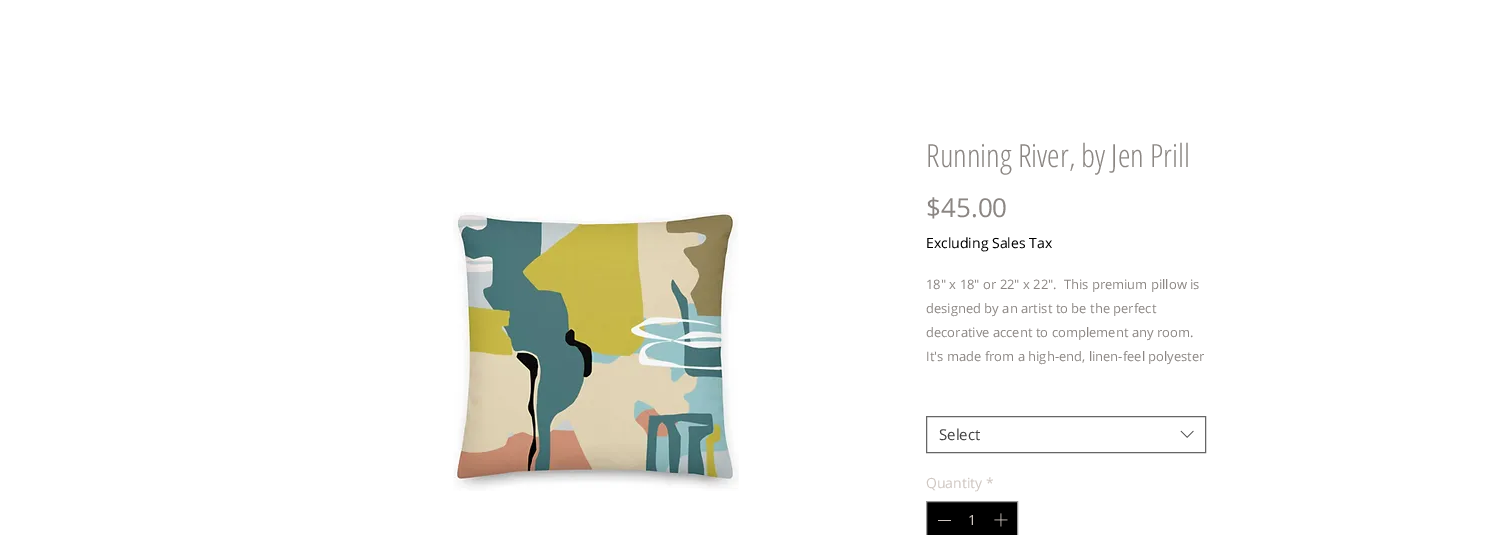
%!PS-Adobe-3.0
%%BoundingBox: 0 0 1512 535
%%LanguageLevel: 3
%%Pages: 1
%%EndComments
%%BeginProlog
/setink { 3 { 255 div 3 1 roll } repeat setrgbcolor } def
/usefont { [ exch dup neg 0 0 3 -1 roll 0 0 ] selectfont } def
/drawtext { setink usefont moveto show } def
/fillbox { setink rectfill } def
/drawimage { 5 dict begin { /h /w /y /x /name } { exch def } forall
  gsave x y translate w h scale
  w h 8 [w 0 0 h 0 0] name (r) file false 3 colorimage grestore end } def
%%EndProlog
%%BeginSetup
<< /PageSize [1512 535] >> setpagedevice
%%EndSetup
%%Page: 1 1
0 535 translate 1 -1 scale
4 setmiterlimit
0 0 1512 535 255 255 255 fillbox
(assets/img1.rgb) 453 212 286 279 drawimage
(Running River, by Jen Prill) 926 167 /OpenSansCondensed-Light 32 139 134 131 drawtext
($45.00) 926 217 /OpenSans-Regular 26 139 134 131 drawtext
(Excluding Sales Tax) 926 248 /OpenSans-Regular 14 0 0 0 drawtext
(18" x 18" or 22" x 22".  This premium pillow is) 926 289 /OpenSans-Regular 13 139 134 131 drawtext
(designed by an artist to be the perfect) 926 313 /OpenSans-Regular 13 139 134 131 drawtext
(decorative accent to complement any room.) 926 337 /OpenSans-Regular 13 139 134 131 drawtext
(It's made from a high-end, linen-feel polyester) 926 361 /OpenSans-Regular 13 139 134 131 drawtext
102 102 102 setink
926.5 416.5 279 36 rectstroke
(Select) 939 440 /OpenSans-Regular 15 68 68 68 drawtext
(assets/img2.rgb) 1180 430 14 8 drawimage
(Quantity) 926 488 /OpenSans-Regular 14 207 199 194 drawtext
(*) 986 488 /OpenSans-Regular 14 207 199 194 drawtext
0 0 0 setink
926.5 501.5 moveto 1017.5 501.5 lineto 1017.5 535.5 lineto 926.5 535.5 lineto closepath gsave fill grestore
153 153 153 setink
stroke
938 520 13 1 207 199 194 fillbox
(1) 968 525 /OpenSans-Regular 14 207 199 194 drawtext
(assets/img3.rgb) 994 513 14 14 drawimage
showpage
%%EOF
